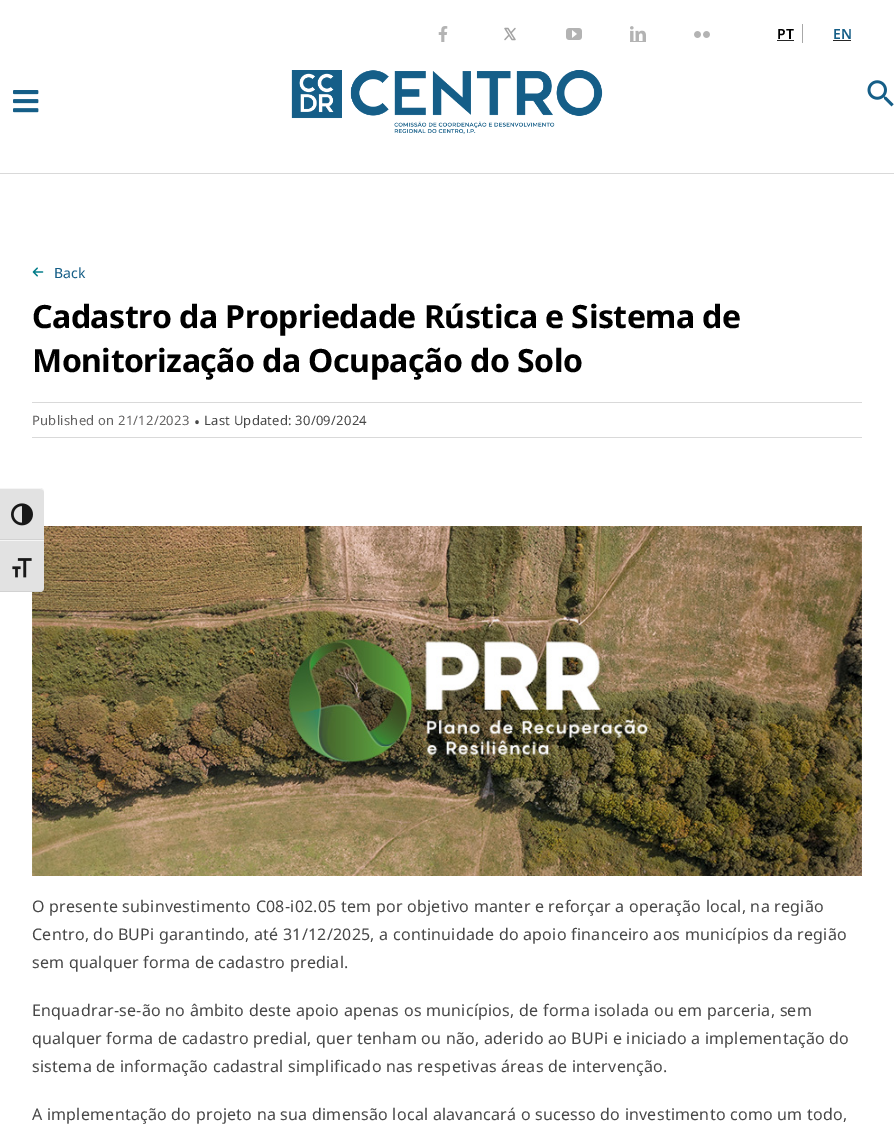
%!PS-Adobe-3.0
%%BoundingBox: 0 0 894 1135
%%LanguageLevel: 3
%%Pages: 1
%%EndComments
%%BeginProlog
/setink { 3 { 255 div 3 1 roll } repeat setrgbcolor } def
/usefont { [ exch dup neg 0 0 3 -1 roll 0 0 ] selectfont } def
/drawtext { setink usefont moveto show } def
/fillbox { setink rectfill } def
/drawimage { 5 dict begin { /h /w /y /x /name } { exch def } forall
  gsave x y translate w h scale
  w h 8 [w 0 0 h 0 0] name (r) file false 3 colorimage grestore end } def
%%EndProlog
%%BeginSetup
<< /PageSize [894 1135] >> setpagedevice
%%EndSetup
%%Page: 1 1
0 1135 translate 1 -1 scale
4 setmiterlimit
0 0 894 1135 255 255 255 fillbox
(assets/img1.rgb) 438 26 10 16 drawimage
(assets/img2.rgb) 504 27 12 14 drawimage
(assets/img3.rgb) 566 28 16 12 drawimage
(assets/img4.rgb) 630 26 16 15 drawimage
630 41 16 1 179 179 179 fillbox
(assets/img5.rgb) 694 31 16 7 drawimage
(PT) 777 39 /NotoSans-SemiBold 14 0 0 0 drawtext
802 24 1 19 168 168 168 fillbox
777 40 17 1 38 38 38 fillbox
(EN) 833 39 /NotoSans-SemiBold 14 21 94 135 drawtext
833 40 18 1 38 38 38 fillbox
0 173 894 1 217 217 217 fillbox
(assets/img6.rgb) 13 90 26 23 drawimage
(assets/img7.rgb) 291 70 312 64 drawimage
(assets/img8.rgb) 867 80 27 27 drawimage
(assets/img13.rgb) 32 526 830 350 drawimage
226 226 226 setink
0 488 moveto 40 488 lineto 42 488 44 490 44 492 curveto 44 540 lineto 0 540 lineto closepath fill
245 245 245 setink
0 488 moveto 0 489 lineto 40 489 lineto 42 489 44 490 44 492 curveto 44 490 42 488 40 488 curveto closepath fill
0 539 44 1 210 210 210 fillbox
(assets/img9.rgb) 11 503 22 23 drawimage
226 226 226 setink
0 540 moveto 44 540 lineto 44 588 lineto 44 590 42 592 40 592 curveto 0 592 lineto closepath fill
0 540 44 1 245 245 245 fillbox
210 210 210 setink
0 591 moveto 0 592 lineto 40 592 lineto 42 592 44 590 44 588 curveto 44 590 42 591 40 591 curveto closepath fill
(assets/img10.rgb) 12 558 20 20 drawimage
(assets/img11.rgb) 32 267 12 10 drawimage
(Back) 54 278 /NotoSans-Regular 14 21 94 135 drawtext
/NotoSans-Bold 32 usefont
0 0 0 setink
32 328 moveto -0.5 0 (Cadastro da Propriedade Rústica e Sistema de) ashow
32 372 moveto -0.5 0 (Monitorização da Ocupação do Solo) ashow
32 402 830 1 217 217 217 fillbox
32 437 830 1 217 217 217 fillbox
/NotoSans-Regular 13 usefont
99 98 98 setink
32 425 moveto 0.24 0 (Published on 21/12/2023) ashow
(assets/img12.rgb) 195 420 4 5 drawimage
71 71 71 setink
204 425 moveto 0.24 0 (Last Updated: 30/09/2024) ashow
/NotoSans-Regular 16 usefont
32 912 moveto 0.24 0 (O presente subinvestimento C08-i02.05 tem por objetivo manter e reforçar a operação local, na região) ashow
32 940 moveto 0.24 0 (Centro, do BUPi garantindo, até 31/12/2025, a continuidade do apoio financeiro aos municípios da região) ashow
32 968 moveto 0.24 0 (sem qualquer forma de cadastro predial.) ashow
32 1016 moveto 0.24 0 (Enquadrar-se-ão no âmbito deste apoio apenas os municípios, de forma isolada ou em parceria, sem) ashow
32 1044 moveto 0.24 0 (qualquer forma de cadastro predial, quer tenham ou não, aderido ao BUPi e iniciado a implementação do) ashow
32 1072 moveto 0.24 0 (sistema de informação cadastral simplificado nas respetivas áreas de intervenção.) ashow
32 1120 moveto 0.24 0 (A implementação do projeto na sua dimensão local alavancará o sucesso do investimento como um todo,) ashow
showpage
%%EOF
